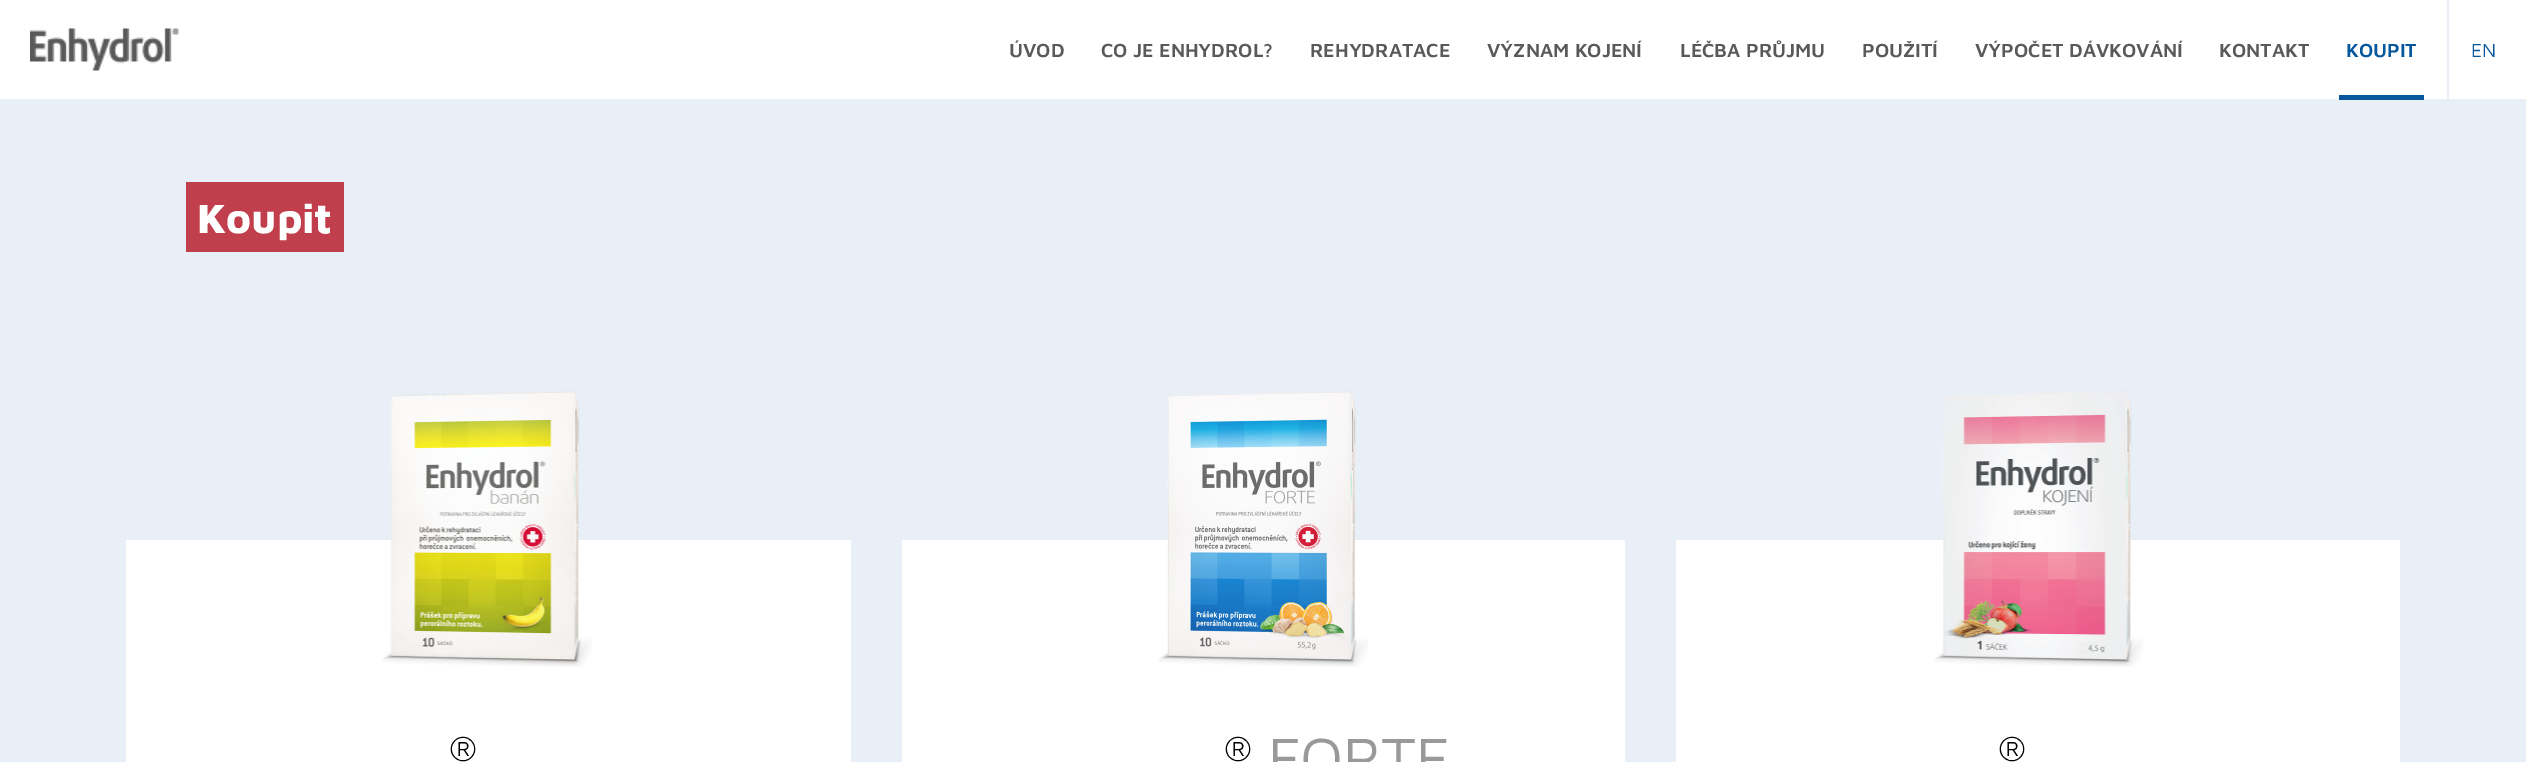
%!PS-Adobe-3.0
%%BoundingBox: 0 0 2526 762
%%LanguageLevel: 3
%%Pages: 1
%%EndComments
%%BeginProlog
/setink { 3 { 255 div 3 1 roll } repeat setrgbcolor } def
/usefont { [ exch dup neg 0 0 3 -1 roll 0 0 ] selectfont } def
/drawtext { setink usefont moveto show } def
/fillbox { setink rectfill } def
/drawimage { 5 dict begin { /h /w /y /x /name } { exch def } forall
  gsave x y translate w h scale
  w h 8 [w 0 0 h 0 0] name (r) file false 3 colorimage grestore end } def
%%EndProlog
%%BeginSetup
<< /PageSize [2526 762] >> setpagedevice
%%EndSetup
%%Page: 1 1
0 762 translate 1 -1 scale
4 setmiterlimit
0 0 2526 762 232 239 246 fillbox
0 0 2526 99 255 255 255 fillbox
(assets/img1.rgb) 30 28 149 43 drawimage
(ÚVOD) 1009 57 /MavenPro-SemiBold 19.5 89 89 91 drawtext
(CO JE ENHYDROL?) 1101 57 /MavenPro-SemiBold 19.5 89 89 91 drawtext
(REHYDRATACE) 1310 57 /MavenPro-SemiBold 19.5 89 89 91 drawtext
(VÝZNAM KOJENÍ) 1487 57 /MavenPro-SemiBold 19.5 89 89 91 drawtext
(LÉČBA PRŮJMU) 1680 57 /MavenPro-SemiBold 19.5 89 89 91 drawtext
(POUŽITÍ) 1862 57 /MavenPro-SemiBold 19.5 89 89 91 drawtext
(VÝPOČET DÁVKOVÁNÍ) 1975 57 /MavenPro-SemiBold 19.5 89 89 91 drawtext
(KONTAKT) 2219 57 /MavenPro-SemiBold 19.5 89 89 91 drawtext
2339 95 85 5 7 87 157 fillbox
(KOUPIT) 2346 57 /MavenPro-SemiBold 19.5 7 87 157 drawtext
2447 0 2 99 232 239 246 fillbox
(EN) 2471 57 /MavenPro-Regular 19.5 7 87 157 drawtext
186 182 158 70 193 62 76 fillbox
(Koupit) 197 233 /MavenPro-ExtraBold 42 255 255 255 drawtext
126 540 725 222 255 255 255 fillbox
(assets/img2.rgb) 382 391 210 276 drawimage
(®) 449 761 /MavenPro-Regular 36 0 0 0 drawtext
902 540 723 222 255 255 255 fillbox
(assets/img3.rgb) 1158 391 210 276 drawimage
(®) 1224 761 /MavenPro-Regular 36 0 0 0 drawtext
(FORTE) 1268 779 /MavenPro-Regular 60 153 153 153 drawtext
1676 540 724 222 255 255 255 fillbox
(assets/img4.rgb) 1934 391 209 276 drawimage
(®) 1998 761 /MavenPro-Regular 36 0 0 0 drawtext
showpage
%%EOF
